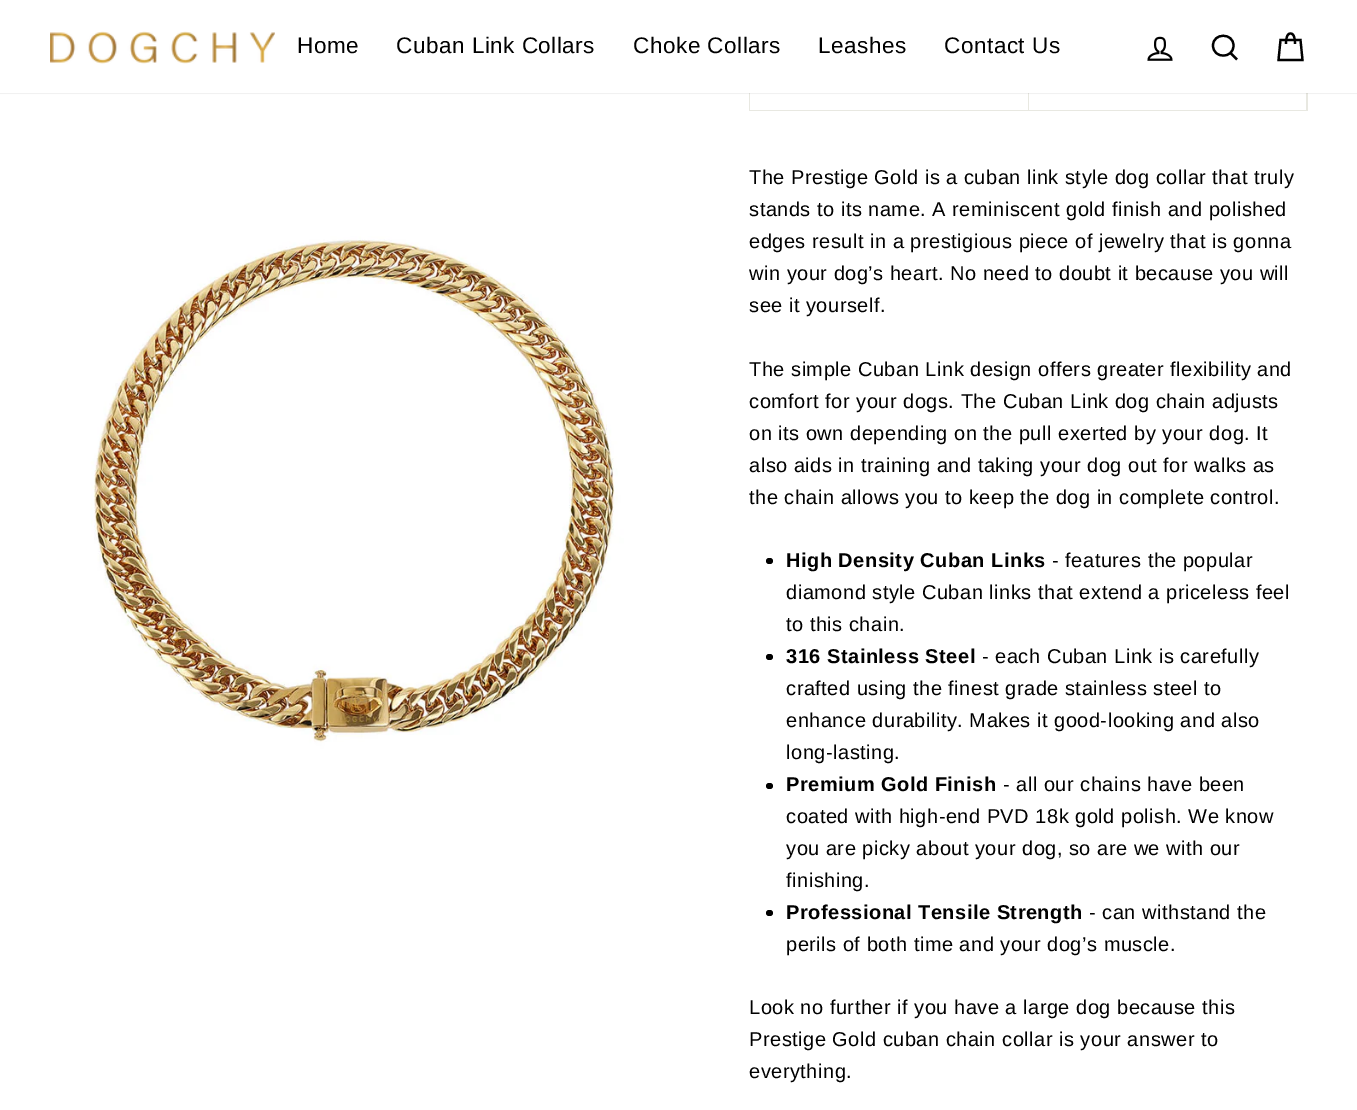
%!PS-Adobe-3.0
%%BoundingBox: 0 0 1357 1110
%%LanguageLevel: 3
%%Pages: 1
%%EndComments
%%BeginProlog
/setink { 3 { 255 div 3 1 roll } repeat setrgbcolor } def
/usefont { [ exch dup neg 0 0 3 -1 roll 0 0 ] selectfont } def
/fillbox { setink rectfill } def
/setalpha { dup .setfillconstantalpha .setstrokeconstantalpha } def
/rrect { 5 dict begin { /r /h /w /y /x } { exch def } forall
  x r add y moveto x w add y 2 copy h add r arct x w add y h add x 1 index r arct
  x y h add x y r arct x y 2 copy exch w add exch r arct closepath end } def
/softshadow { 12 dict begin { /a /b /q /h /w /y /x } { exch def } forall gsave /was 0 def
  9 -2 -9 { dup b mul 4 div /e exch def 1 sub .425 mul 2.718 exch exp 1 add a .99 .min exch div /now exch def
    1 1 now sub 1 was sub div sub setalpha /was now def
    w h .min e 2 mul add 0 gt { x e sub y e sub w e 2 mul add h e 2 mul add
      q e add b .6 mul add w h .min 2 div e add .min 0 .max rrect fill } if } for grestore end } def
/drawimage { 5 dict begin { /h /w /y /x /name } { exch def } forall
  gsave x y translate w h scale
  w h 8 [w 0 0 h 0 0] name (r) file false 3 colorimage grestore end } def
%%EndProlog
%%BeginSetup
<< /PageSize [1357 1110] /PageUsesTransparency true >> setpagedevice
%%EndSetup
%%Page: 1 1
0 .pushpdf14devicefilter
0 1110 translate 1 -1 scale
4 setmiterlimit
0 0 1357 1110 255 255 255 fillbox
749 93 559 18 232 232 225 fillbox
750 93 278 17 255 255 255 fillbox
1029 93 277 17 255 255 255 fillbox
0 0 0 setink
0 0 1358 93 0 0.5 0.2 softshadow
0 0 1357 93 255 255 255 fillbox
(assets/img1.rgb) 50 31 225 33 drawimage
/Arimo-Regular 22.5 usefont
0 0 0 setink
297 53 moveto 0.5 0 (Home) ashow
396 53 moveto 0.5 0 (Cuban Link Collars) ashow
633 53 moveto 0.5 0 (Choke Collars) ashow
818 53 moveto 0.5 0 (Leashes) ashow
944 53 moveto 0.5 0 (Contact Us) ashow
(assets/img2.rgb) 1147 36 26 25 drawimage
2.2 setlinewidth
1233.5 45.5 moveto 1233.5 59 1213 59 1213 45.5 curveto 1213 32.5 1233.5 32.5 1233.5 45.5 curveto closepath 1237 59.5 moveto 1230.5 53 lineto stroke
1286 44 moveto 1286 35.5 1288 33.5 1290.5 33.5 curveto 1293 33.5 1295 35.5 1295 44 curveto 1280.5 40 moveto 1300.5 40 lineto 1302.5 60 lineto 1278.5 60 lineto closepath stroke
(assets/img3.rgb) 50 175 615 615 drawimage
/Arimo-Regular 20 usefont
749 184 moveto 0.5 0 (The Prestige Gold is a cuban link style dog collar that truly) ashow
749 216 moveto 0.5 0 (stands to its name. A reminiscent gold finish and polished) ashow
749 248 moveto 0.5 0 (edges result in a prestigious piece of jewelry that is gonna) ashow
749 280 moveto 0.5 0 (win your dog’s heart. No need to doubt it because you will) ashow
749 312 moveto 0.5 0 (see it yourself.) ashow
749 376 moveto 0.5 0 (The simple Cuban Link design offers greater flexibility and) ashow
749 408 moveto 0.5 0 (comfort for your dogs. The Cuban Link dog chain adjusts) ashow
749 440 moveto 0.5 0 (on its own depending on the pull exerted by your dog. It) ashow
749 472 moveto 0.5 0 (also aids in training and taking your dog out for walks as) ashow
749 504 moveto 0.5 0 (the chain allows you to keep the dog in complete control.) ashow
766 558 7 6 3 rrect fill
/Arimo-Bold 20 usefont
786 567 moveto 0.5 0 (High Density Cuban Links) ashow
/Arimo-Regular 20 usefont
1052 567 moveto 0.5 0 (- features the popular) ashow
786 599 moveto 0.5 0 (diamond style Cuban links that extend a priceless feel) ashow
786 631 moveto 0.5 0 (to this chain.) ashow
766 654 7 6 3 rrect fill
/Arimo-Bold 20 usefont
786 663 moveto 0.5 0 (316 Stainless Steel) ashow
/Arimo-Regular 20 usefont
982 663 moveto 0.5 0 (- each Cuban Link is carefully) ashow
786 695 moveto 0.5 0 (crafted using the finest grade stainless steel to) ashow
786 727 moveto 0.5 0 (enhance durability. Makes it good-looking and also) ashow
786 759 moveto 0.5 0 (long-lasting.) ashow
766 783 7 6 3 rrect fill
/Arimo-Bold 20 usefont
786 791 moveto 0.5 0 (Premium Gold Finish) ashow
/Arimo-Regular 20 usefont
1003 791 moveto 0.5 0 (- all our chains have been) ashow
786 823 moveto 0.5 0 (coated with high-end PVD 18k gold polish. We know) ashow
786 855 moveto 0.5 0 (you are picky about your dog, so are we with our) ashow
786 887 moveto 0.5 0 (finishing.) ashow
766 910 7 6 3 rrect fill
/Arimo-Bold 20 usefont
786 919 moveto 0.5 0 (Professional Tensile Strength) ashow
/Arimo-Regular 20 usefont
1089 919 moveto 0.5 0 (- can withstand the) ashow
786 951 moveto 0.5 0 (perils of both time and your dog’s muscle.) ashow
749 1014 moveto 0.5 0 (Look no further if you have a large dog because this) ashow
749 1046 moveto 0.5 0 (Prestige Gold cuban chain collar is your answer to) ashow
749 1078 moveto 0.5 0 (everything.) ashow
.poppdf14devicefilter showpage
%%EOF
